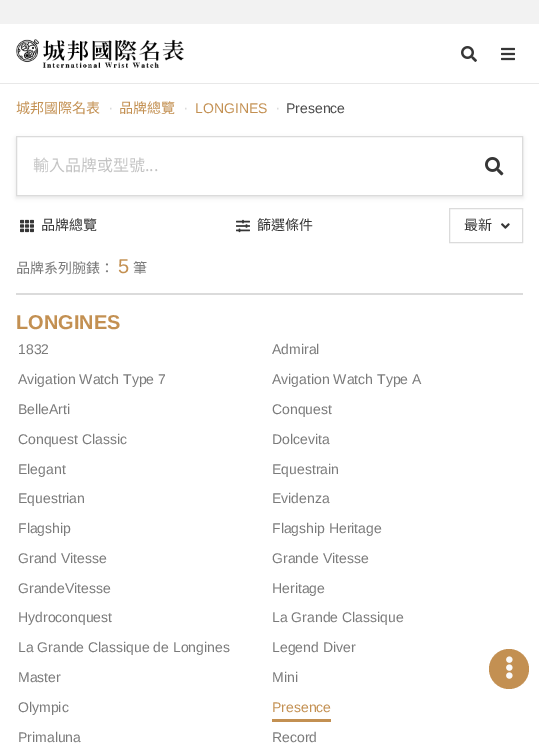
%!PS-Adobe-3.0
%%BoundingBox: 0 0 539 749
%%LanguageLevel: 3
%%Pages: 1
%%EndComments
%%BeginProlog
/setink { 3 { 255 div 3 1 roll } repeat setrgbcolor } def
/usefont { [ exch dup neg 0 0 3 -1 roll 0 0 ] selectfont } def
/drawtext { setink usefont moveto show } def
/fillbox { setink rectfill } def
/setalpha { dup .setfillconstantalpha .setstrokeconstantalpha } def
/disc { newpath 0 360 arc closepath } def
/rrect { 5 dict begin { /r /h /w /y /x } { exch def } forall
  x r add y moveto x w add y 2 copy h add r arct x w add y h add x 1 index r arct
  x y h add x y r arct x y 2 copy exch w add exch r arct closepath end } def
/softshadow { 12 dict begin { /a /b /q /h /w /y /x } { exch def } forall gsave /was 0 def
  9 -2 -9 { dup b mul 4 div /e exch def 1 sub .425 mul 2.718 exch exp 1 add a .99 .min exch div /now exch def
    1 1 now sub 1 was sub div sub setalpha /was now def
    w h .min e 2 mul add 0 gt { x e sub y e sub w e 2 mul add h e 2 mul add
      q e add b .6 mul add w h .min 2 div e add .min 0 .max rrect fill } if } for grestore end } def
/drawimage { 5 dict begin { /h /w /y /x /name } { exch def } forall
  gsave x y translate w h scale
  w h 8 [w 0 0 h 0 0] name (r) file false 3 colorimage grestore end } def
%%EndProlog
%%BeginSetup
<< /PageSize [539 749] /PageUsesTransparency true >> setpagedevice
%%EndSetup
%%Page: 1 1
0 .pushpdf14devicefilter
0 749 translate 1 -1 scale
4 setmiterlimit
0 0 539 749 242 242 242 fillbox
0 24 539 59 255 255 255 fillbox
0 83 539 1 232 232 232 fillbox
(assets/img1.rgb) 16 39 168 29 drawimage
(assets/img2.rgb) 461 46 16 16 drawimage
(assets/img3.rgb) 501 47 14 14 drawimage
0 84 539 665 255 255 255 fillbox
(城邦國際名表) 16 113 /NotoSansTC-Regular 14 195 144 82 drawtext
(·) 108 113 /LiberationSans-Regular 16 219 219 219 drawtext
(品牌總覽) 119 113 /NotoSansTC-Regular 14 195 144 82 drawtext
(·) 183 113 /LiberationSans-Regular 16 219 219 219 drawtext
(LONGINES) 195 113 /LiberationSans-Regular 14 195 144 82 drawtext
(·) 275 113 /LiberationSans-Regular 16 219 219 219 drawtext
(Presence) 286 113 /LiberationSans-Regular 14 74 74 74 drawtext
gsave
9 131 moveto 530 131 lineto 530 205 lineto 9 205 lineto closepath 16 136 moveto 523 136 lineto 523 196 lineto 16 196 lineto closepath eoclip newpath
18 18 18 setink
16 138 507 60 0 2 0.1 softshadow
grestore
219 219 219 setink
16.5 136.5 506 59 rectstroke
(輸入品牌或型號...) 33 171 /NotoSansTC-Regular 16 195 195 195 drawtext
(assets/img4.rgb) 485 157 19 19 drawimage
(assets/img5.rgb) 20 219 14 14 drawimage
(品牌總覽) 41 230 /NotoSansTC-Regular 14 54 54 54 drawtext
(assets/img6.rgb) 236 219 14 14 drawimage
(篩選條件) 257 230 /NotoSansTC-Regular 14 54 54 54 drawtext
219 219 219 setink
449.5 208.5 73 34 rectstroke
(最新) 464 230 /NotoSansTC-Regular 14 54 54 54 drawtext
(assets/img7.rgb) 501 223 9 6 drawimage
(品牌系列腕錶：) 16 273 /NotoSansTC-Regular 14 122 122 122 drawtext
(5) 118 273 /LiberationSans-Regular 20 195 144 82 drawtext
(筆) 133 273 /NotoSansTC-Regular 14 122 122 122 drawtext
16 293 507 2 219 219 219 fillbox
(LONGINES) 16 329 /LiberationSans-Bold 20 195 144 82 drawtext
(1832) 18 354 /LiberationSans-Regular 14 122 122 122 drawtext
(Admiral) 272 354 /LiberationSans-Regular 14 122 122 122 drawtext
(Avigation Watch Type 7) 18 384 /LiberationSans-Regular 14 122 122 122 drawtext
(Avigation Watch Type A) 272 384 /LiberationSans-Regular 14 122 122 122 drawtext
(BelleArti) 18 414 /LiberationSans-Regular 14 122 122 122 drawtext
(Conquest) 272 414 /LiberationSans-Regular 14 122 122 122 drawtext
(Conquest Classic) 18 444 /LiberationSans-Regular 14 122 122 122 drawtext
(Dolcevita) 272 444 /LiberationSans-Regular 14 122 122 122 drawtext
(Elegant) 18 474 /LiberationSans-Regular 14 122 122 122 drawtext
(Equestrain) 272 474 /LiberationSans-Regular 14 122 122 122 drawtext
(Equestrian) 18 503 /LiberationSans-Regular 14 122 122 122 drawtext
(Evidenza) 272 503 /LiberationSans-Regular 14 122 122 122 drawtext
(Flagship) 18 533 /LiberationSans-Regular 14 122 122 122 drawtext
(Flagship Heritage) 272 533 /LiberationSans-Regular 14 122 122 122 drawtext
(Grand Vitesse) 18 563 /LiberationSans-Regular 14 122 122 122 drawtext
(Grande Vitesse) 272 563 /LiberationSans-Regular 14 122 122 122 drawtext
(GrandeVitesse) 18 593 /LiberationSans-Regular 14 122 122 122 drawtext
(Heritage) 272 593 /LiberationSans-Regular 14 122 122 122 drawtext
(Hydroconquest) 18 622 /LiberationSans-Regular 14 122 122 122 drawtext
(La Grande Classique) 272 622 /LiberationSans-Regular 14 122 122 122 drawtext
(La Grande Classique de Longines) 18 652 /LiberationSans-Regular 14 122 122 122 drawtext
(Legend Diver) 272 652 /LiberationSans-Regular 14 122 122 122 drawtext
(Master) 18 682 /LiberationSans-Regular 14 122 122 122 drawtext
(Mini) 272 682 /LiberationSans-Regular 14 122 122 122 drawtext
(Olympic) 18 712 /LiberationSans-Regular 14 122 122 122 drawtext
(Presence) 272 712 /LiberationSans-Regular 14 195 144 82 drawtext
272 719 59 3 195 144 82 fillbox
(Primaluna) 18 742 /LiberationSans-Regular 14 122 122 122 drawtext
(Record) 272 742 /LiberationSans-Regular 14 122 122 122 drawtext
195 144 82 setink
509 669 20 disc fill
(assets/img8.rgb) 506 656 7 23 drawimage
.poppdf14devicefilter showpage
%%EOF
